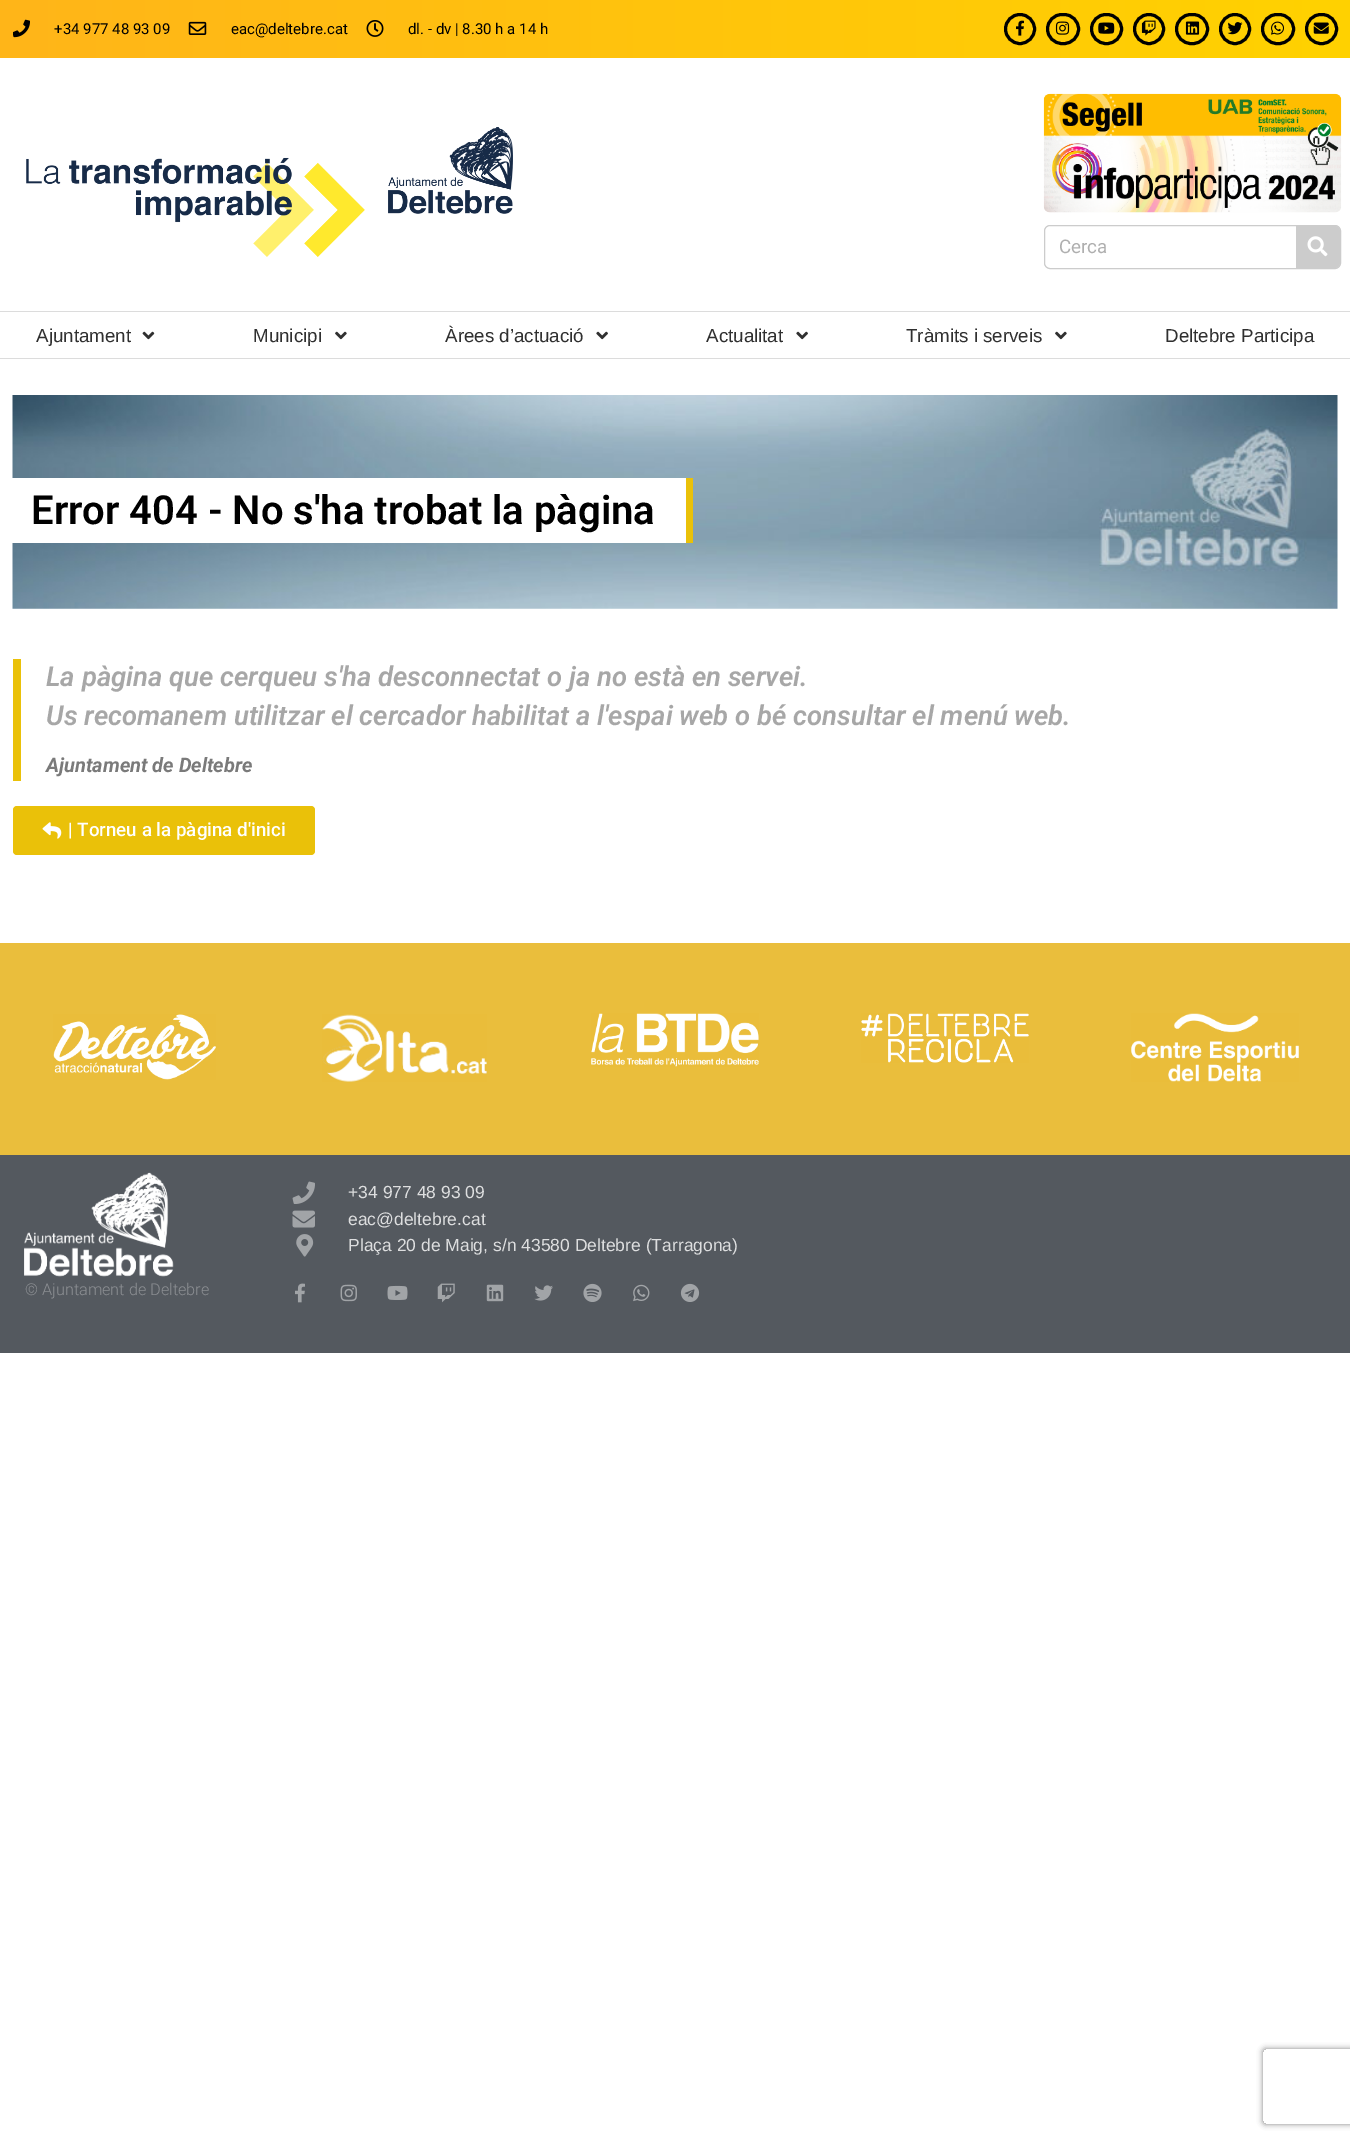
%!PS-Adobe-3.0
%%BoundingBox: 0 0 1350 2141
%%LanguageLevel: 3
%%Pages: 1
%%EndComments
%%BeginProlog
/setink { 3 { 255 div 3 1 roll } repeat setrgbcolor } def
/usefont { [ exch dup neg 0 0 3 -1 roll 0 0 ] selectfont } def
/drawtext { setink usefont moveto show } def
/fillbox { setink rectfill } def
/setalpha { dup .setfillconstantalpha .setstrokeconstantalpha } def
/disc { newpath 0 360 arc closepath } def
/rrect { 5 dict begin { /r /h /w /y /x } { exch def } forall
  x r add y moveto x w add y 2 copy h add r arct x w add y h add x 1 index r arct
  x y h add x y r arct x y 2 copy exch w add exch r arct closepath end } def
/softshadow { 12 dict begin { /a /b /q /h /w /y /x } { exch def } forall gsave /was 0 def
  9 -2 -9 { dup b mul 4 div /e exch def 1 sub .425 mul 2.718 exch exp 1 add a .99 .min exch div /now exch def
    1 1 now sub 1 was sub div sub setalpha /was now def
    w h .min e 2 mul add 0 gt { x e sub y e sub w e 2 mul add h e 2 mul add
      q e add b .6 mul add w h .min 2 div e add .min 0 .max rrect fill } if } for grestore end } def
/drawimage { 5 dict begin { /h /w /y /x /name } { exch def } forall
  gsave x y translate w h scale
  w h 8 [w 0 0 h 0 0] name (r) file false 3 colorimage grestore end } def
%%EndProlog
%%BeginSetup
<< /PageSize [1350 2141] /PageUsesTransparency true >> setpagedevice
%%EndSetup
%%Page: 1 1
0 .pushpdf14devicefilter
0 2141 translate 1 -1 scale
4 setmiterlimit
0 0 1350 2141 255 255 255 fillbox
gsave 0 0 moveto 1350 0 lineto 1350 58 lineto 0 58 lineto closepath clip newpath
<< /ShadingType 2 /ColorSpace /DeviceRGB /Coords [1350 29 0 29] /Extend [true true] /Function << /FunctionType 2 /Domain [0 1] /C0 [1 0.824 0] /C1 [1 0.71 0.098] /N 1 >> >> shfill grestore
(assets/img1.rgb) 13 19 17 19 drawimage
(+34 977 48 93 09) 54 34 /Roboto-Regular 15 0 0 0 drawtext
(assets/img2.rgb) 188 21 19 14 drawimage
(eac@deltebre.cat) 231 34 /Roboto-Regular 15 0 0 0 drawtext
(assets/img3.rgb) 366 20 18 17 drawimage
(dl. - dv | 8.30 h a 14 h) 408 34 /Roboto-Regular 15 0 0 0 drawtext
3 setlinewidth
1020 29 14.5 disc stroke
(assets/img4.rgb) 1016 20 8 16 drawimage
1047.5 14.5 31 29 14.5 rrect stroke
(assets/img5.rgb) 1055 21 15 14 drawimage
1091.5 14.5 30 29 14.5 rrect stroke
(assets/img6.rgb) 1098 22 17 12 drawimage
1149 29 14.5 disc stroke
(assets/img7.rgb) 1141 20 15 16 drawimage
1176.5 14.5 31 29 14.5 rrect stroke
(assets/img8.rgb) 1185 21 15 14 drawimage
1235 29 14.5 disc stroke
(assets/img9.rgb) 1227 22 16 13 drawimage
1262.5 14.5 31 29 14.5 rrect stroke
(assets/img10.rgb) 1271 21 13 14 drawimage
1306.5 14.5 30 29 14.5 rrect stroke
(assets/img11.rgb) 1313 22 16 12 drawimage
(assets/img12.rgb) 26 127 487 130 drawimage
(assets/img13.rgb) 1043 93 299 120 drawimage
204 204 204 setink
1 setlinewidth
1044.5 225.5 296 43 5.5 rrect stroke
(Cerca) 1059 253 /Roboto-Regular 18.75 175 175 175 drawtext
204 204 204 setink
1296 226 moveto 1335 226 lineto 1338 226 1340 228 1340 231 curveto 1340 263 lineto 1340 266 1338 268 1335 268 curveto 1296 268 lineto closepath fill
(assets/img14.rgb) 1307 236 21 21 drawimage
0 311 1350 1 220 220 220 fillbox
0 358 1350 1 220 220 220 fillbox
(Ajuntament) 36 342 /LiberationSans-Regular 18.75 48 48 48 drawtext
(assets/img15.rgb) 142 331 13 9 drawimage
(Municipi) 253 342 /LiberationSans-Regular 18.75 48 48 48 drawtext
(assets/img16.rgb) 335 331 12 9 drawimage
(Àrees d’actuació) 445 342 /LiberationSans-Regular 18.75 48 48 48 drawtext
(assets/img17.rgb) 596 331 12 9 drawimage
(Actualitat) 706 342 /LiberationSans-Regular 18.75 48 48 48 drawtext
(assets/img17.rgb) 796 331 12 9 drawimage
(Tràmits i serveis) 906 342 /LiberationSans-Regular 18.75 48 48 48 drawtext
(assets/img16.rgb) 1055 331 12 9 drawimage
(Deltebre Participa) 1165 342 /LiberationSans-Regular 18.75 48 48 48 drawtext
(assets/img18.rgb) 12 395 1326 214 drawimage
12 478 674 65 255 255 255 fillbox
686 478 7 65 234 193 9 fillbox
(Error 404 - No s'ha trobat la pàgina) 31 524 /Roboto-SemiBold 40 0 0 0 drawtext
13 659 8 122 234 193 9 fillbox
(La pàgina que cerqueu s'ha desconnectat o ja no està en servei.) 46 686 /Roboto-SemiBoldItalic 27.5 167 167 167 drawtext
(Us recomanem utilitzar el cercador habilitat a l'espai web o bé consultar el menú web.) 46 725 /Roboto-SemiBoldItalic 27.5 167 167 167 drawtext
(Ajuntament de Deltebre) 46 772 /Roboto-BoldItalic 20 122 122 122 drawtext
234 193 9 setink
13 806 302 49 4 rrect fill
(assets/img19.rgb) 42 822 20 17 drawimage
(| Torneu a la pàgina d'inici) 68 836 /Roboto-Medium 18.75 255 255 255 drawtext
0 943 1350 212 234 190 60 fillbox
(assets/img20.rgb) 53 1014 163 66 drawimage
(assets/img21.rgb) 322 1014 165 68 drawimage
(assets/img22.rgb) 591 1013 168 54 drawimage
(assets/img23.rgb) 861 1013 168 50 drawimage
(assets/img24.rgb) 1131 1013 168 69 drawimage
0 1155 1350 198 84 89 95 fillbox
(assets/img25.rgb) 292 1181 23 23 drawimage
(+34 977 48 93 09) 348 1198 /LiberationSans-Regular 17.5 221 222 223 drawtext
(assets/img26.rgb) 292 1210 23 18 drawimage
(eac@deltebre.cat) 348 1225 /LiberationSans-Regular 17.5 221 222 223 drawtext
(assets/img27.rgb) 296 1234 18 23 drawimage
(Plaça 20 de Maig, s/n 43580 Deltebre \(Tarragona\)) 348 1251 /LiberationSans-Regular 17.5 221 222 223 drawtext
(assets/img28.rgb) 295 1283 10 20 drawimage
(assets/img29.rgb) 340 1284 17 18 drawimage
(assets/img30.rgb) 387 1285 21 15 drawimage
(assets/img31.rgb) 437 1283 18 20 drawimage
(assets/img32.rgb) 486 1284 18 18 drawimage
(assets/img33.rgb) 534 1285 19 16 drawimage
(assets/img34.rgb) 583 1283 19 19 drawimage
(assets/img35.rgb) 633 1284 17 18 drawimage
(assets/img36.rgb) 680 1283 20 19 drawimage
(assets/img37.rgb) 24 1172 150 105 drawimage
(© Ajuntament de Deltebre) 25 1295 /Roboto-Light 16.25 139 142 146 drawtext
gsave
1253 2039 moveto 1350 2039 lineto 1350 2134 lineto 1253 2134 lineto closepath 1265.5 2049 moveto 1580.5 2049 lineto 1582 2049 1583 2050 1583 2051.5 curveto 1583 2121.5 lineto 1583 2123 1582 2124 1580.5 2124 curveto 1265.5 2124 lineto 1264 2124 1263 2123 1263 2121.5 curveto 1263 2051.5 lineto 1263 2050 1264 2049 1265.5 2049 curveto closepath eoclip newpath
128 128 128 setink
1263 2049 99 75 2.5 3 1 softshadow
grestore
.poppdf14devicefilter showpage
%%EOF
